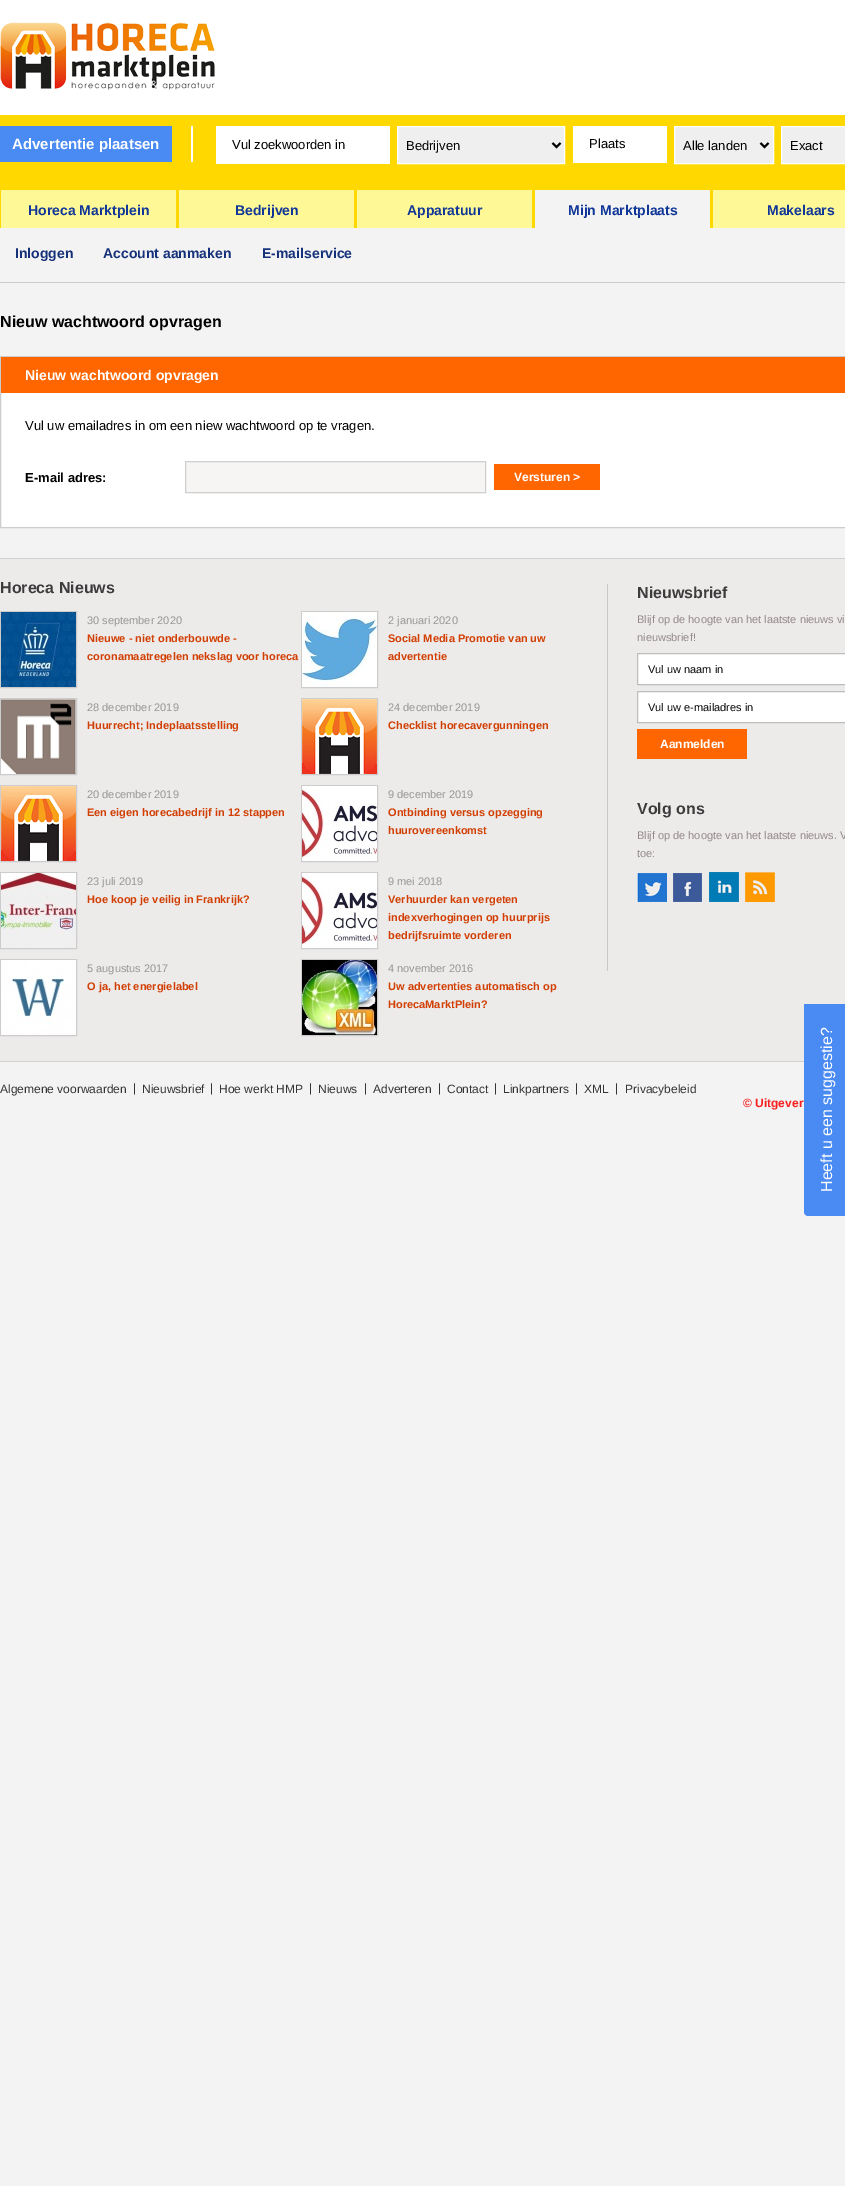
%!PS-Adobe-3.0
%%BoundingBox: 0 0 845 2186
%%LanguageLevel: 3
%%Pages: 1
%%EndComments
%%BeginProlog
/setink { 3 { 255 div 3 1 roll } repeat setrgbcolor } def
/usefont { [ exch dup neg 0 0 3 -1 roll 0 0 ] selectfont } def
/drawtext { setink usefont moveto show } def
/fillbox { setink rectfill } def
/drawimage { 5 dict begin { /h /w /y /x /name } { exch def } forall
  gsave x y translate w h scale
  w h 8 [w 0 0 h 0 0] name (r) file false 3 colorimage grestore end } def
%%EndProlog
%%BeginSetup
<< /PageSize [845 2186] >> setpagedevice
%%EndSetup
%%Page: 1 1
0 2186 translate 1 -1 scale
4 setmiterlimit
0 0 845 2186 243 243 243 fillbox
0 0 845 115 255 255 255 fillbox
(assets/img1.rgb) 0 22 215 68 drawimage
0 115 845 113 255 216 0 fillbox
191 126 2 36 255 255 255 fillbox
0 126 172 36 73 138 243 fillbox
(Advertentie plaatsen) 12 149 /LiberationSans-Bold 15 255 255 255 drawtext
216 126 174 38 255 255 255 fillbox
(Vul zoekwoorden in) 232 149 /LiberationSans-Regular 13 0 0 0 drawtext
239 239 239 setink
397.5 126.5 moveto 564.5 126.5 lineto 564.5 163.5 lineto 397.5 163.5 lineto closepath gsave fill grestore
255 255 255 setink
stroke
0 0 0 setink
2 setlinewidth
552.5 143 moveto 556.5 147 lineto 560.5 143 lineto stroke
(Bedrijven) 406 150 /LiberationSans-Regular 13 0 0 0 drawtext
573 126 94 37 255 255 255 fillbox
(Plaats) 589 148 /LiberationSans-Regular 13 0 0 0 drawtext
239 239 239 setink
674.5 126.5 moveto 773.5 126.5 lineto 773.5 163.5 lineto 674.5 163.5 lineto closepath gsave fill grestore
255 255 255 setink
1 setlinewidth
stroke
0 0 0 setink
2 setlinewidth
760.5 143 moveto 764.5 147 lineto 768.5 143 lineto stroke
(Alle landen) 683 150 /LiberationSans-Regular 13 0 0 0 drawtext
239 239 239 setink
781.5 126.5 moveto 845.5 126.5 lineto 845.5 163.5 lineto 781.5 163.5 lineto closepath gsave fill grestore
255 255 255 setink
1 setlinewidth
stroke
(Exact) 790 150 /LiberationSans-Regular 13 0 0 0 drawtext
1 190 175 38 255 248 150 fillbox
(Horeca Marktplein) 28 215 /LiberationSans-Bold 14 16 54 152 drawtext
179 190 175 38 255 248 150 fillbox
(Bedrijven) 235 215 /LiberationSans-Bold 14 16 54 152 drawtext
357 190 175 38 255 248 150 fillbox
(Apparatuur) 407 215 /LiberationSans-Bold 14 16 54 152 drawtext
535 190 175 38 243 243 243 fillbox
(Mijn Marktplaats) 568 215 /LiberationSans-Bold 14 16 54 152 drawtext
713 190 132 38 255 248 150 fillbox
(Makelaars) 767 215 /LiberationSans-Bold 14 16 54 152 drawtext
0 282 845 1 204 204 204 fillbox
(Inloggen) 15 258 /LiberationSans-Bold 14 21 49 121 drawtext
(Account aanmaken) 103 258 /LiberationSans-Bold 14 21 49 121 drawtext
(E-mailservice) 262 258 /LiberationSans-Bold 14 21 49 121 drawtext
(Nieuw wachtwoord opvragen) 0 327 /LiberationSans-Bold 16 0 0 0 drawtext
1 393 844 134 255 255 255 fillbox
204 204 204 setink
0.5 356.5 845 171 rectstroke
1 357 844 36 255 102 0 fillbox
(Nieuw wachtwoord opvragen) 25 380 /LiberationSans-Bold 14 255 255 255 drawtext
(Vul uw emailadres in om een niew wachtwoord op te vragen.) 25 430 /LiberationSans-Regular 13 0 0 0 drawtext
(E-mail adres:) 25 482 /LiberationSans-Bold 13 0 0 0 drawtext
247 244 244 setink
185.5 461.5 moveto 485.5 461.5 lineto 485.5 492.5 lineto 185.5 492.5 lineto closepath gsave fill grestore
206 206 206 setink
stroke
494 464 106 26 255 102 0 fillbox
(Versturen >) 514 481 /LiberationSans-Bold 12 255 255 255 drawtext
0 559 845 502 237 234 234 fillbox
0 558 845 1 208 208 208 fillbox
0 1061 804 1 208 208 208 fillbox
(Horeca Nieuws) 0 593 /LiberationSans-Bold 16 60 60 60 drawtext
204 204 204 setink
0.5 611.5 76 76 rectstroke
(assets/img2.rgb) 1 612 75 75 drawimage
(30 september 2020) 87 624 /LiberationSans-Regular 11 151 151 151 drawtext
(Nieuwe - niet onderbouwde -) 87 642 /LiberationSans-Bold 11 210 63 2 drawtext
(coronamaatregelen nekslag voor horeca) 87 660 /LiberationSans-Bold 11 210 63 2 drawtext
204 204 204 setink
301.5 611.5 76 76 rectstroke
(assets/img3.rgb) 302 612 75 75 drawimage
(2 januari 2020) 388 624 /LiberationSans-Regular 11 151 151 151 drawtext
(Social Media Promotie van uw) 388 642 /LiberationSans-Bold 11 210 63 2 drawtext
(advertentie) 388 660 /LiberationSans-Bold 11 210 63 2 drawtext
204 204 204 setink
0.5 698.5 76 76 rectstroke
(assets/img4.rgb) 1 699 75 75 drawimage
(28 december 2019) 87 711 /LiberationSans-Regular 11 151 151 151 drawtext
(Huurrecht; Indeplaatsstelling) 87 729 /LiberationSans-Bold 11 210 63 2 drawtext
204 204 204 setink
301.5 698.5 76 76 rectstroke
(assets/img5.rgb) 302 699 75 75 drawimage
(24 december 2019) 388 711 /LiberationSans-Regular 11 151 151 151 drawtext
(Checklist horecavergunningen) 388 729 /LiberationSans-Bold 11 210 63 2 drawtext
204 204 204 setink
0.5 785.5 76 76 rectstroke
(assets/img5.rgb) 1 786 75 75 drawimage
(20 december 2019) 87 798 /LiberationSans-Regular 11 151 151 151 drawtext
(Een eigen horecabedrijf in 12 stappen) 87 816 /LiberationSans-Bold 11 210 63 2 drawtext
204 204 204 setink
301.5 785.5 76 76 rectstroke
(assets/img6.rgb) 302 786 75 75 drawimage
(9 december 2019) 388 798 /LiberationSans-Regular 11 151 151 151 drawtext
(Ontbinding versus opzegging) 388 816 /LiberationSans-Bold 11 210 63 2 drawtext
(huurovereenkomst) 388 834 /LiberationSans-Bold 11 210 63 2 drawtext
204 204 204 setink
0.5 872.5 76 76 rectstroke
(assets/img7.rgb) 1 873 75 75 drawimage
(23 juli 2019) 87 885 /LiberationSans-Regular 11 151 151 151 drawtext
(Hoe koop je veilig in Frankrijk?) 87 903 /LiberationSans-Bold 11 210 63 2 drawtext
204 204 204 setink
301.5 872.5 76 76 rectstroke
(assets/img6.rgb) 302 873 75 75 drawimage
(9 mei 2018) 388 885 /LiberationSans-Regular 11 151 151 151 drawtext
(Verhuurder kan vergeten) 388 903 /LiberationSans-Bold 11 210 63 2 drawtext
(indexverhogingen op huurprijs) 388 921 /LiberationSans-Bold 11 210 63 2 drawtext
(bedrijfsruimte vorderen) 388 939 /LiberationSans-Bold 11 210 63 2 drawtext
204 204 204 setink
0.5 959.5 76 76 rectstroke
(assets/img8.rgb) 1 960 75 75 drawimage
(5 augustus 2017) 87 972 /LiberationSans-Regular 11 151 151 151 drawtext
(O ja, het energielabel) 87 990 /LiberationSans-Bold 11 210 63 2 drawtext
204 204 204 setink
301.5 959.5 76 76 rectstroke
(assets/img9.rgb) 302 960 75 75 drawimage
(4 november 2016) 388 972 /LiberationSans-Regular 11 151 151 151 drawtext
(Uw advertenties automatisch op) 388 990 /LiberationSans-Bold 11 210 63 2 drawtext
(HorecaMarktPlein?) 388 1008 /LiberationSans-Bold 11 210 63 2 drawtext
607 584 1 387 202 199 199 fillbox
(Nieuwsbrief) 637 598 /LiberationSans-Bold 16 60 60 60 drawtext
(Blijf op de hoogte van het laatste nieuws vi) 637 623 /LiberationSans-Regular 11 149 138 138 drawtext
(nieuwsbrief!) 637 641 /LiberationSans-Regular 11 149 138 138 drawtext
255 255 255 setink
637.5 653.5 moveto 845.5 653.5 lineto 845.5 684.5 lineto 637.5 684.5 lineto closepath gsave fill grestore
189 189 189 setink
stroke
(Vul uw naam in) 648 673 /LiberationSans-Regular 11 6 6 6 drawtext
255 255 255 setink
637.5 691.5 moveto 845.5 691.5 lineto 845.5 722.5 lineto 637.5 722.5 lineto closepath gsave fill grestore
189 189 189 setink
stroke
(Vul uw e-mailadres in) 648 711 /LiberationSans-Regular 11 6 6 6 drawtext
637 729 110 30 255 102 0 fillbox
(Aanmelden) 660 748 /LiberationSans-Bold 12 255 255 255 drawtext
(Volg ons) 637 814 /LiberationSans-Bold 16 60 60 60 drawtext
(Blijf op de hoogte van het laatste nieuws. V) 637 839 /LiberationSans-Regular 11 149 138 138 drawtext
(toe:) 637 857 /LiberationSans-Regular 11 149 138 138 drawtext
(assets/img10.rgb) 637 873 30 29 drawimage
(assets/img11.rgb) 673 873 29 29 drawimage
(assets/img12.rgb) 709 872 30 30 drawimage
(assets/img13.rgb) 745 872 30 30 drawimage
(assets/img14.rgb) 134 1083 1 12 drawimage
(Algemene voorwaarden) 0 1093 /LiberationSans-Regular 12 52 52 52 drawtext
(assets/img14.rgb) 211 1083 1 12 drawimage
(Nieuwsbrief) 142 1093 /LiberationSans-Regular 12 52 52 52 drawtext
(assets/img14.rgb) 310 1083 1 12 drawimage
(Hoe werkt HMP) 219 1093 /LiberationSans-Regular 12 52 52 52 drawtext
(assets/img14.rgb) 365 1083 1 12 drawimage
(Nieuws) 318 1093 /LiberationSans-Regular 12 52 52 52 drawtext
(assets/img14.rgb) 439 1083 1 12 drawimage
(Adverteren) 373 1093 /LiberationSans-Regular 12 52 52 52 drawtext
(assets/img14.rgb) 495 1083 1 12 drawimage
(Contact) 447 1093 /LiberationSans-Regular 12 52 52 52 drawtext
(assets/img14.rgb) 576 1083 1 12 drawimage
(Linkpartners) 503 1093 /LiberationSans-Regular 12 52 52 52 drawtext
(assets/img14.rgb) 616 1083 1 12 drawimage
(XML) 584 1093 /LiberationSans-Regular 12 52 52 52 drawtext
(Privacybeleid) 625 1093 /LiberationSans-Regular 12 52 52 52 drawtext
(© Uitgever) 743 1107 /LiberationSans-Bold 12 247 32 32 drawtext
73 138 243 setink
804 1212 moveto 804 1004 lineto 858 1004 lineto 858 1212 lineto 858 1214 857 1216 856 1216 curveto 808 1216 lineto 806 1216 804 1214 804 1212 curveto closepath fill
/LiberationSans-Regular 16 usefont
255 255 255 setink
gsave 832 1192 translate -90 rotate 0 0 moveto (Heeft u een suggestie?) show grestore
showpage
%%EOF
